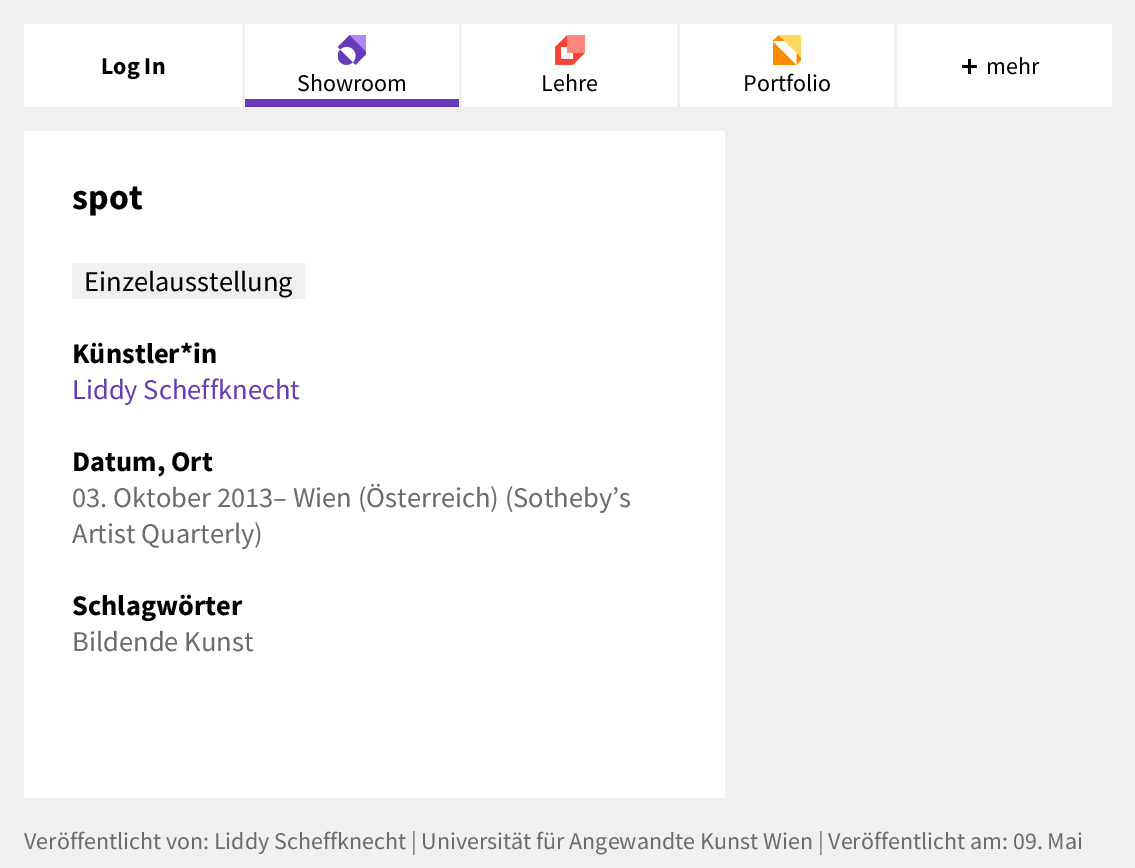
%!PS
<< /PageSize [1135 868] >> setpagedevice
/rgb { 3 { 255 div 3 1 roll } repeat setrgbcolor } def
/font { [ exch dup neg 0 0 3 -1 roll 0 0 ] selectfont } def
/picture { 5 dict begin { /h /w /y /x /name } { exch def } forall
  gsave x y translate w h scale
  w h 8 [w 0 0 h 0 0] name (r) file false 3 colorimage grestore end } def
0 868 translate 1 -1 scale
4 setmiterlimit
240 240 240 rgb
0 0 1135 868 rectfill
[
  [245 24 867 83 255 255 255]
  [24 24 218 83 255 255 255]
  [894 24 3 83 240 240 240]
  [968 59 3 15 0 0 0]
  [962 65 15 3 0 0 0]
  [245 99 214 8 103 58 183]
] { aload pop rgb rectfill } forall
(img/1.rgb) 338 35 28 30 picture
240 240 240 rgb
459 24 3 83 rectfill
(img/2.rgb) 555 35 30 30 picture
677 24 3 83 rectfill
(img/3.rgb) 773 35 28 30 picture
255 255 255 rgb
24 131 701 667 rectfill
240 240 240 rgb
72 263 233 36 rectfill
/SourceSansPro-Bold 24 font
0 0 0 rgb
101 74 moveto (Log In) show
/SourceSansPro-Regular 24 font
[
  [(mehr) 986 74]
  [(Showroom) 297 91]
  [(Lehre) 541 91]
  [(Portfolio) 743 91]
] { aload pop moveto show } forall
/SourceSansPro-Bold 36 font
72 209 moveto (spot) show
/SourceSansPro-Regular 28.5 font
84 291 moveto (Einzelausstellung) show
/SourceSansPro-Bold 28.5 font
72 363 moveto (Künstler*in) show
/SourceSansPro-Regular 28.5 font
103 58 183 rgb
72 399 moveto (Liddy Scheffknecht) show
/SourceSansPro-Bold 28.5 font
0 0 0 rgb
72 471 moveto (Datum, Ort) show
/SourceSansPro-Regular 28.5 font
107 107 107 rgb
72 507 moveto (03. Oktober 2013– Wien \(Österreich\) \(Sotheby’s) show
72 543 moveto (Artist Quarterly\)) show
/SourceSansPro-Bold 28.5 font
0 0 0 rgb
72 615 moveto (Schlagwörter) show
/SourceSansPro-Regular 28.5 font
107 107 107 rgb
72 651 moveto (Bildende Kunst) show
/SourceSansPro-Regular 24 font
24 849 moveto (Veröffentlicht von: Liddy Scheffknecht | Universität für Angewandte Kunst Wien | Veröffentlicht am: 09. Mai) show
showpage
